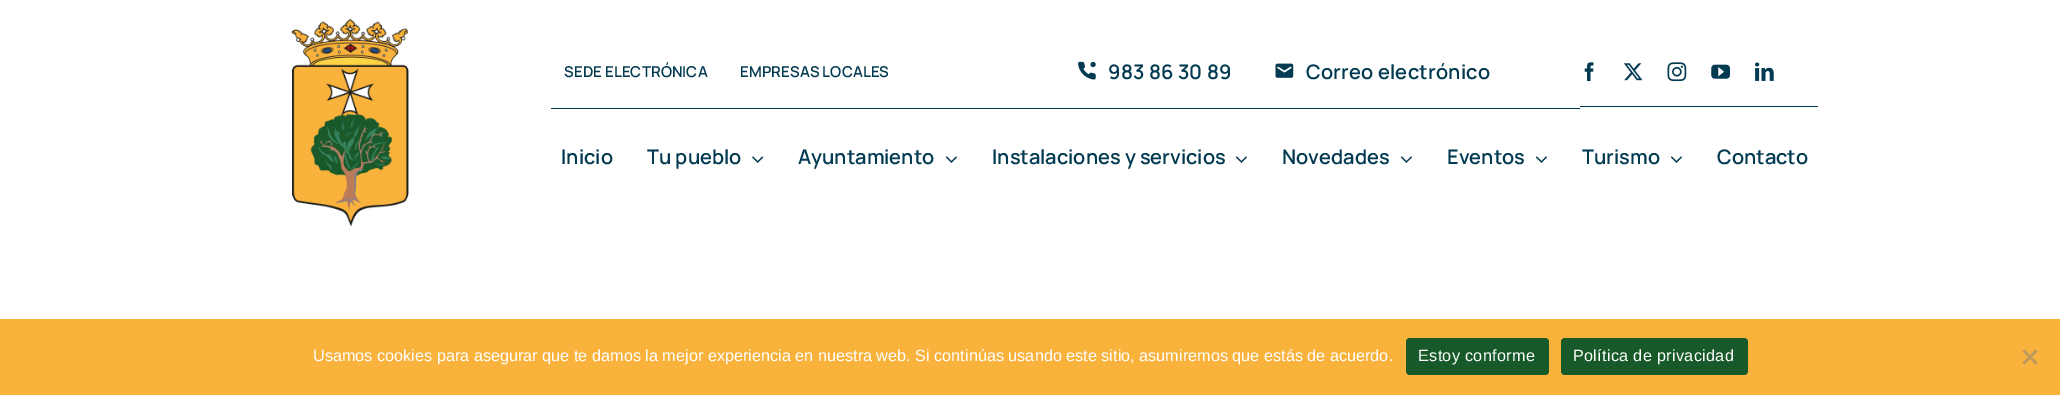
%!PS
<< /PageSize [2060 395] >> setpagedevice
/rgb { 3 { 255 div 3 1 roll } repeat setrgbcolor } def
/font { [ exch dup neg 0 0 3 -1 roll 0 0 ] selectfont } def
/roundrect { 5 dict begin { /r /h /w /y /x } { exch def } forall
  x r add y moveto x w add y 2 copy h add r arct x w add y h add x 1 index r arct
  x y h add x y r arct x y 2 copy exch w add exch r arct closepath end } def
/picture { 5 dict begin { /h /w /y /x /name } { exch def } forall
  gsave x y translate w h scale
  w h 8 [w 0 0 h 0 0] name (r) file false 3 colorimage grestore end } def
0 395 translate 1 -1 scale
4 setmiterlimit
255 255 255 rgb
0 0 2060 395 rectfill
(img/1.rgb) 291 18 118 209 picture
2 58 81 rgb
551 108 1029 1 rectfill
(img/2.rgb) 1078 61 18 19 picture
(img/3.rgb) 1275 63 19 15 picture
1580 106 238 1 rectfill
(img/4.rgb) 1584 62 10 20 picture
(img/5.rgb) 1623 63 20 18 picture
(img/6.rgb) 1667 62 20 20 picture
(img/7.rgb) 1711 64 19 15 picture
(img/8.rgb) 1755 62 19 19 picture
(img/9.rgb) 752 156 12 7 picture
(img/10.rgb) 945 156 12 7 picture
(img/10.rgb) 1235 156 12 7 picture
(img/10.rgb) 1400 156 12 7 picture
(img/10.rgb) 1535 156 12 7 picture
(img/10.rgb) 1670 156 12 7 picture
249 178 60 rgb
0 319 2060 76 rectfill
23 89 41 rgb
1406 338 143 37 4 roundrect fill
1561 338 187 37 4 roundrect fill
189 153 94 rgb
2035.5 349.5 moveto 2037.5 351.5 lineto 2024.5 364.5 lineto 2022.5 363 lineto closepath fill
2022.5 351.5 moveto 2024.5 349.5 lineto 2037.5 363 lineto 2035.5 364.5 lineto closepath fill
/Manrope-SemiBold 15 font
2 58 81 rgb
564 77 moveto 0.1 0 (SEDE ELECTRÓNICA) ashow
740 77 moveto 0.1 0 (EMPRESAS LOCALES) ashow
/Manrope-SemiBold 20 font
1108 79 moveto 0.2 0 (983 86 30 89) ashow
1306 79 moveto 0.2 0 (Correo electrónico) ashow
[
  [(Inicio) 561 164]
  [(Tu pueblo) 647 164]
  [(Ayuntamiento) 798 164]
  [(Instalaciones y servicios) 992 164]
  [(Novedades) 1282 164]
  [(Eventos) 1447 164]
  [(Turismo) 1582 164]
  [(Contacto) 1717 164]
] { aload pop moveto show } forall
/LiberationSans-Regular 16.25 font
255 255 255 rgb
313 361 moveto (Usamos cookies para asegurar que te damos la mejor experiencia en nuestra web. Si continúas usando este sitio, asumiremos que estás de acuerdo.) show
1418 361 moveto 0.3 0 (Estoy conforme) ashow
1573 361 moveto 0.3 0 (Política de privacidad) ashow
showpage
